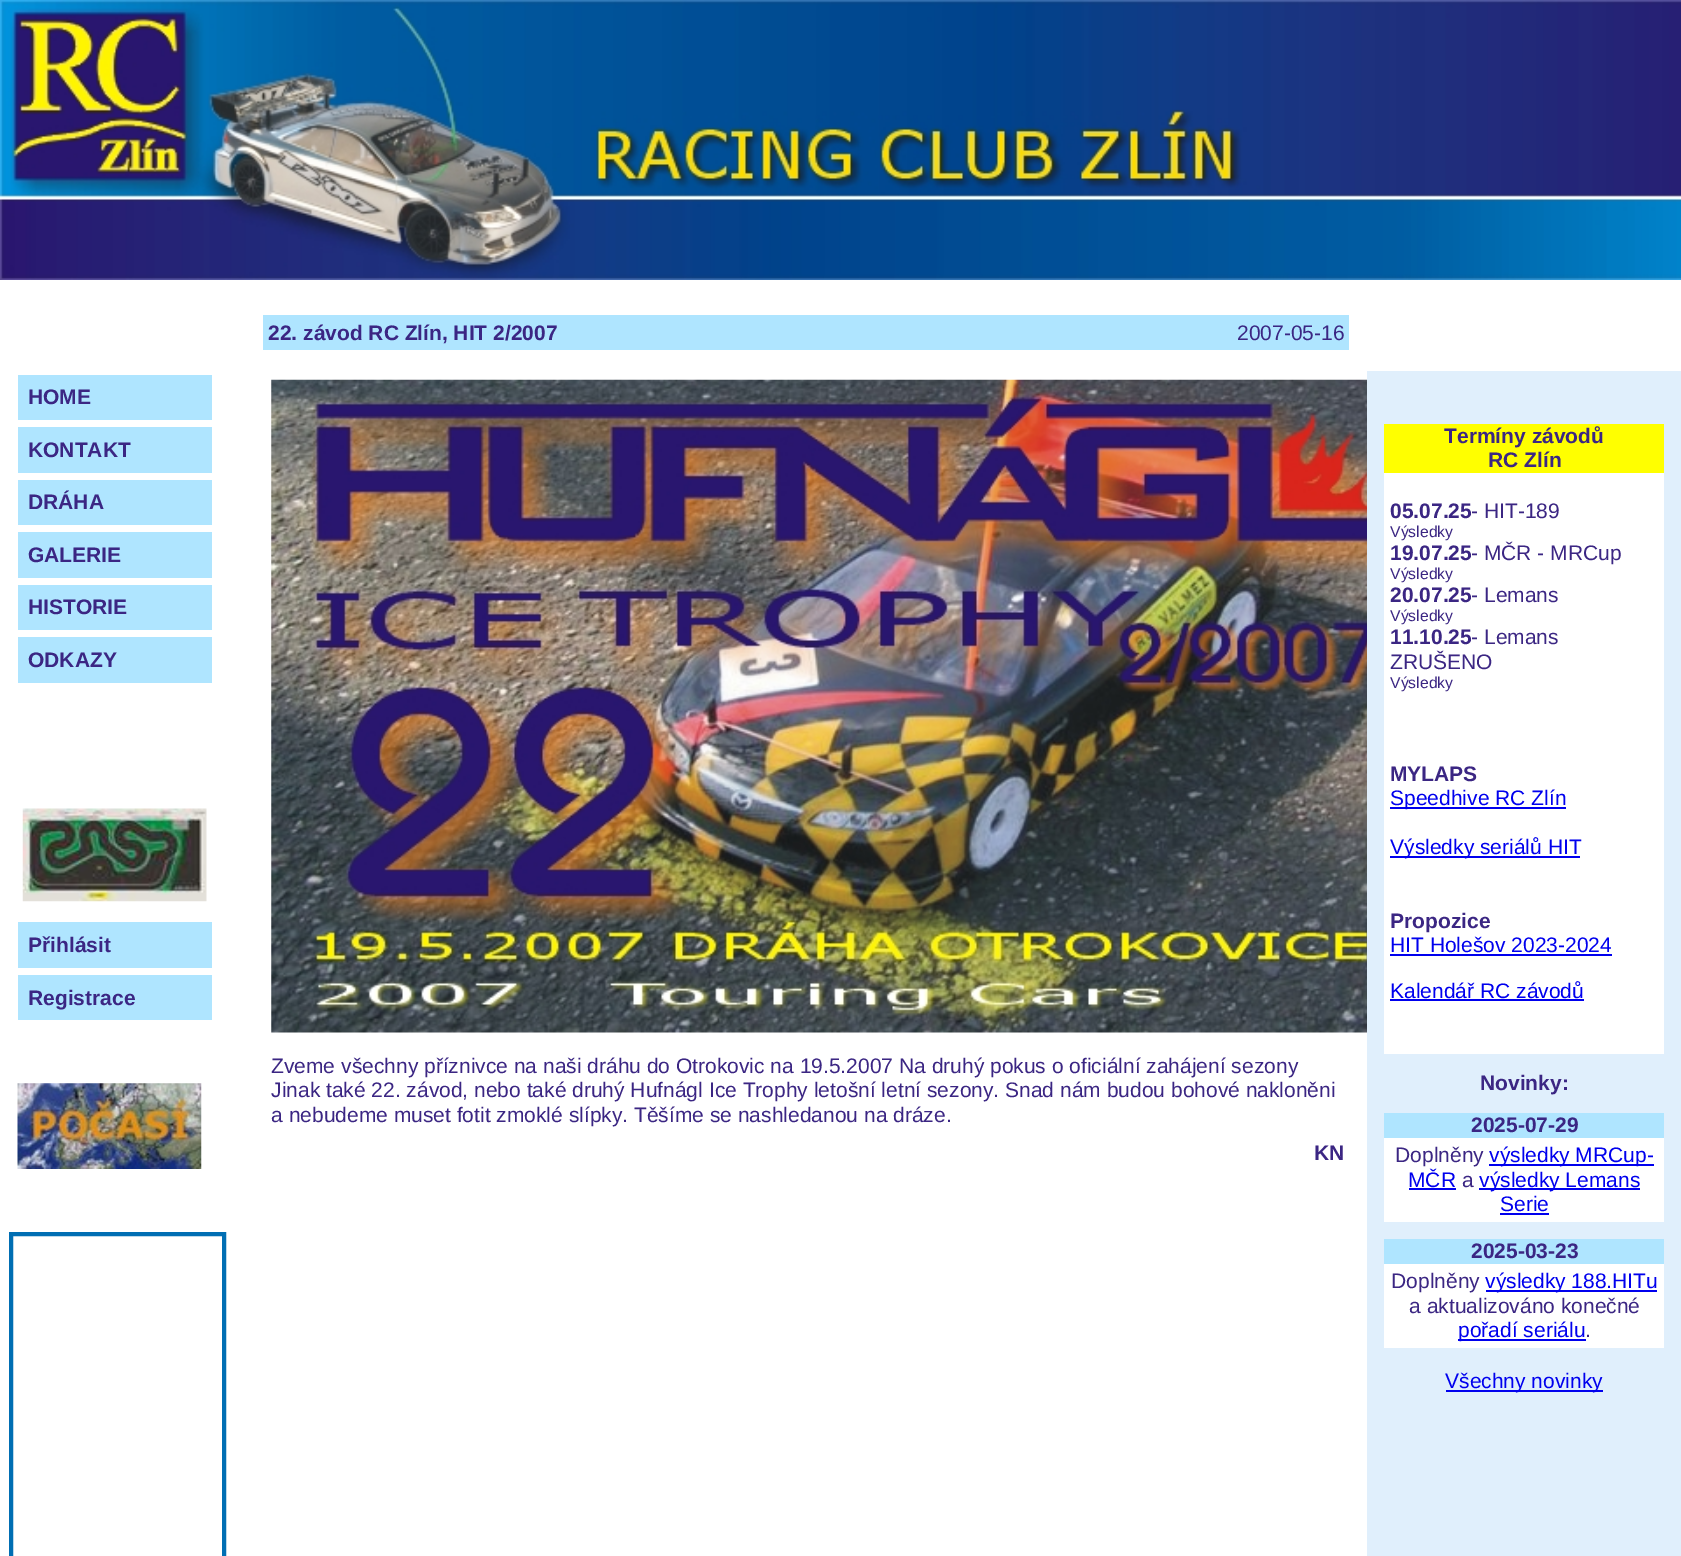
%!PS
<< /PageSize [1681 1556] >> setpagedevice
/rgb { 3 { 255 div 3 1 roll } repeat setrgbcolor } def
/font { [ exch dup neg 0 0 3 -1 roll 0 0 ] selectfont } def
/picture { 5 dict begin { /h /w /y /x /name } { exch def } forall
  gsave x y translate w h scale
  w h 8 [w 0 0 h 0 0] name (r) file false 3 colorimage grestore end } def
0 1556 translate 1 -1 scale
4 setmiterlimit
255 255 255 rgb
0 0 1681 1556 rectfill
(img/1.rgb) 0 0 1681 280 picture
[
  [18 375 194 45 175 229 255]
  [18 427 194 46 175 229 255]
  [18 480 194 45 175 229 255]
  [18 532 194 46 175 229 255]
  [18 585 194 45 175 229 255]
  [18 637 194 46 175 229 255]
] { aload pop rgb rectfill } forall
(img/2.rgb) 22 808 185 94 picture
18 922 194 46 rectfill
18 975 194 45 rectfill
(img/3.rgb) 17 1083 185 86 picture
0 110 179 rgb
4 setlinewidth
11 1234 213 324 rectstroke
175 229 255 rgb
263 315 1086 35 rectfill
(img/4.rgb) 271 379 1096 654 picture
[
  [1367 371 314 1185 224 239 252]
  [1384 473 280 581 255 255 255]
  [1384 424 280 49 255 255 0]
  [1390 807 176 2 0 0 238]
  [1390 856 190 2 0 0 238]
  [1390 954 222 2 0 0 238]
  [1390 999 194 2 0 0 238]
  [1384 1138 280 84 255 255 255]
  [1384 1113 280 25 175 229 255]
  [1489 1164 165 2 0 0 238]
  [1409 1188 47 2 0 0 238]
  [1479 1188 161 2 0 0 238]
  [1500 1213 49 2 0 0 238]
  [1384 1264 280 84 255 255 255]
  [1384 1239 280 25 175 229 255]
  [1486 1290 171 2 0 0 238]
  [1458 1339 128 2 0 0 238]
  [1446 1390 157 2 0 0 238]
] { aload pop rgb rectfill } forall
/LiberationSans-Bold 21 font
59 38 131 rgb
[
  [(HOME) 28 404]
  [(KONTAKT) 28 457]
  [(DRÁHA) 28 509]
  [(GALERIE) 28 562]
  [(HISTORIE) 28 614]
  [(ODKAZY) 28 667]
  [(Přihlásit) 28 952]
  [(Registrace) 28 1005]
  [(22. závod RC Zlín, HIT 2/2007) 268 340]
] { aload pop moveto show } forall
/LiberationSans-Regular 21 font
[
  [(2007-05-16) 1237 340]
  [(Zveme všechny příznivce na naši dráhu do Otrokovic na 19.5.2007 Na druhý pokus o oficiální zahájení sezony) 271 1073]
  [(Jinak také 22. závod, nebo také druhý Hufnágl Ice Trophy letošní letní sezony. Snad nám budou bohové nakloněni) 271 1097]
  [(a nebudeme muset fotit zmoklé slípky. Těšíme se nashledanou na dráze.) 271 1122]
] { aload pop moveto show } forall
/LiberationSans-Bold 21 font
[
  [(KN) 1314 1160]
  [(Termíny závodů) 1444 443]
  [(RC Zlín) 1488 467]
  [(05.07.25) 1390 518]
] { aload pop moveto show } forall
/LiberationSans-Regular 21 font
1471 518 moveto (- HIT-189) show
/LiberationSans-Regular 15.75 font
1390 537 moveto (Výsledky) show
/LiberationSans-Bold 21 font
1390 560 moveto (19.07.25) show
/LiberationSans-Regular 21 font
1471 560 moveto (- MČR - MRCup) show
/LiberationSans-Regular 15.75 font
1390 579 moveto (Výsledky) show
/LiberationSans-Bold 21 font
1390 602 moveto (20.07.25) show
/LiberationSans-Regular 21 font
1471 602 moveto (- Lemans) show
/LiberationSans-Regular 15.75 font
1390 621 moveto (Výsledky) show
/LiberationSans-Bold 21 font
1390 644 moveto (11.10.25) show
/LiberationSans-Regular 21 font
1471 644 moveto (- Lemans) show
1390 669 moveto (ZRUŠENO) show
/LiberationSans-Regular 15.75 font
1390 688 moveto (Výsledky) show
/LiberationSans-Bold 21 font
1390 781 moveto (MYLAPS) show
/LiberationSans-Regular 21 font
0 0 238 rgb
1390 805 moveto (Speedhive RC Zlín) show
1390 854 moveto (Výsledky seriálů HIT) show
/LiberationSans-Bold 21 font
59 38 131 rgb
1390 928 moveto (Propozice) show
/LiberationSans-Regular 21 font
0 0 238 rgb
1390 952 moveto (HIT Holešov 2023-2024) show
1390 998 moveto (Kalendář RC závodů) show
/LiberationSans-Bold 21 font
59 38 131 rgb
1480 1090 moveto (Novinky:) show
1471 1132 moveto (2025-07-29) show
/LiberationSans-Regular 21 font
1395 1162 moveto (Doplněny) show
0 0 238 rgb
1489 1162 moveto (výsledky MRCup-) show
1408 1187 moveto (MČR) show
59 38 131 rgb
1462 1187 moveto (a) show
0 0 238 rgb
1479 1187 moveto (výsledky Lemans) show
1500 1211 moveto (Serie) show
/LiberationSans-Bold 21 font
59 38 131 rgb
1471 1258 moveto (2025-03-23) show
/LiberationSans-Regular 21 font
1391 1288 moveto (Doplněny) show
0 0 238 rgb
1485 1288 moveto (výsledky 188.HITu) show
59 38 131 rgb
1409 1313 moveto (a aktualizováno konečné) show
0 0 238 rgb
1458 1337 moveto (pořadí seriálu) show
59 38 131 rgb
1585 1337 moveto (.) show
0 0 238 rgb
1445 1388 moveto (Všechny novinky) show
showpage
